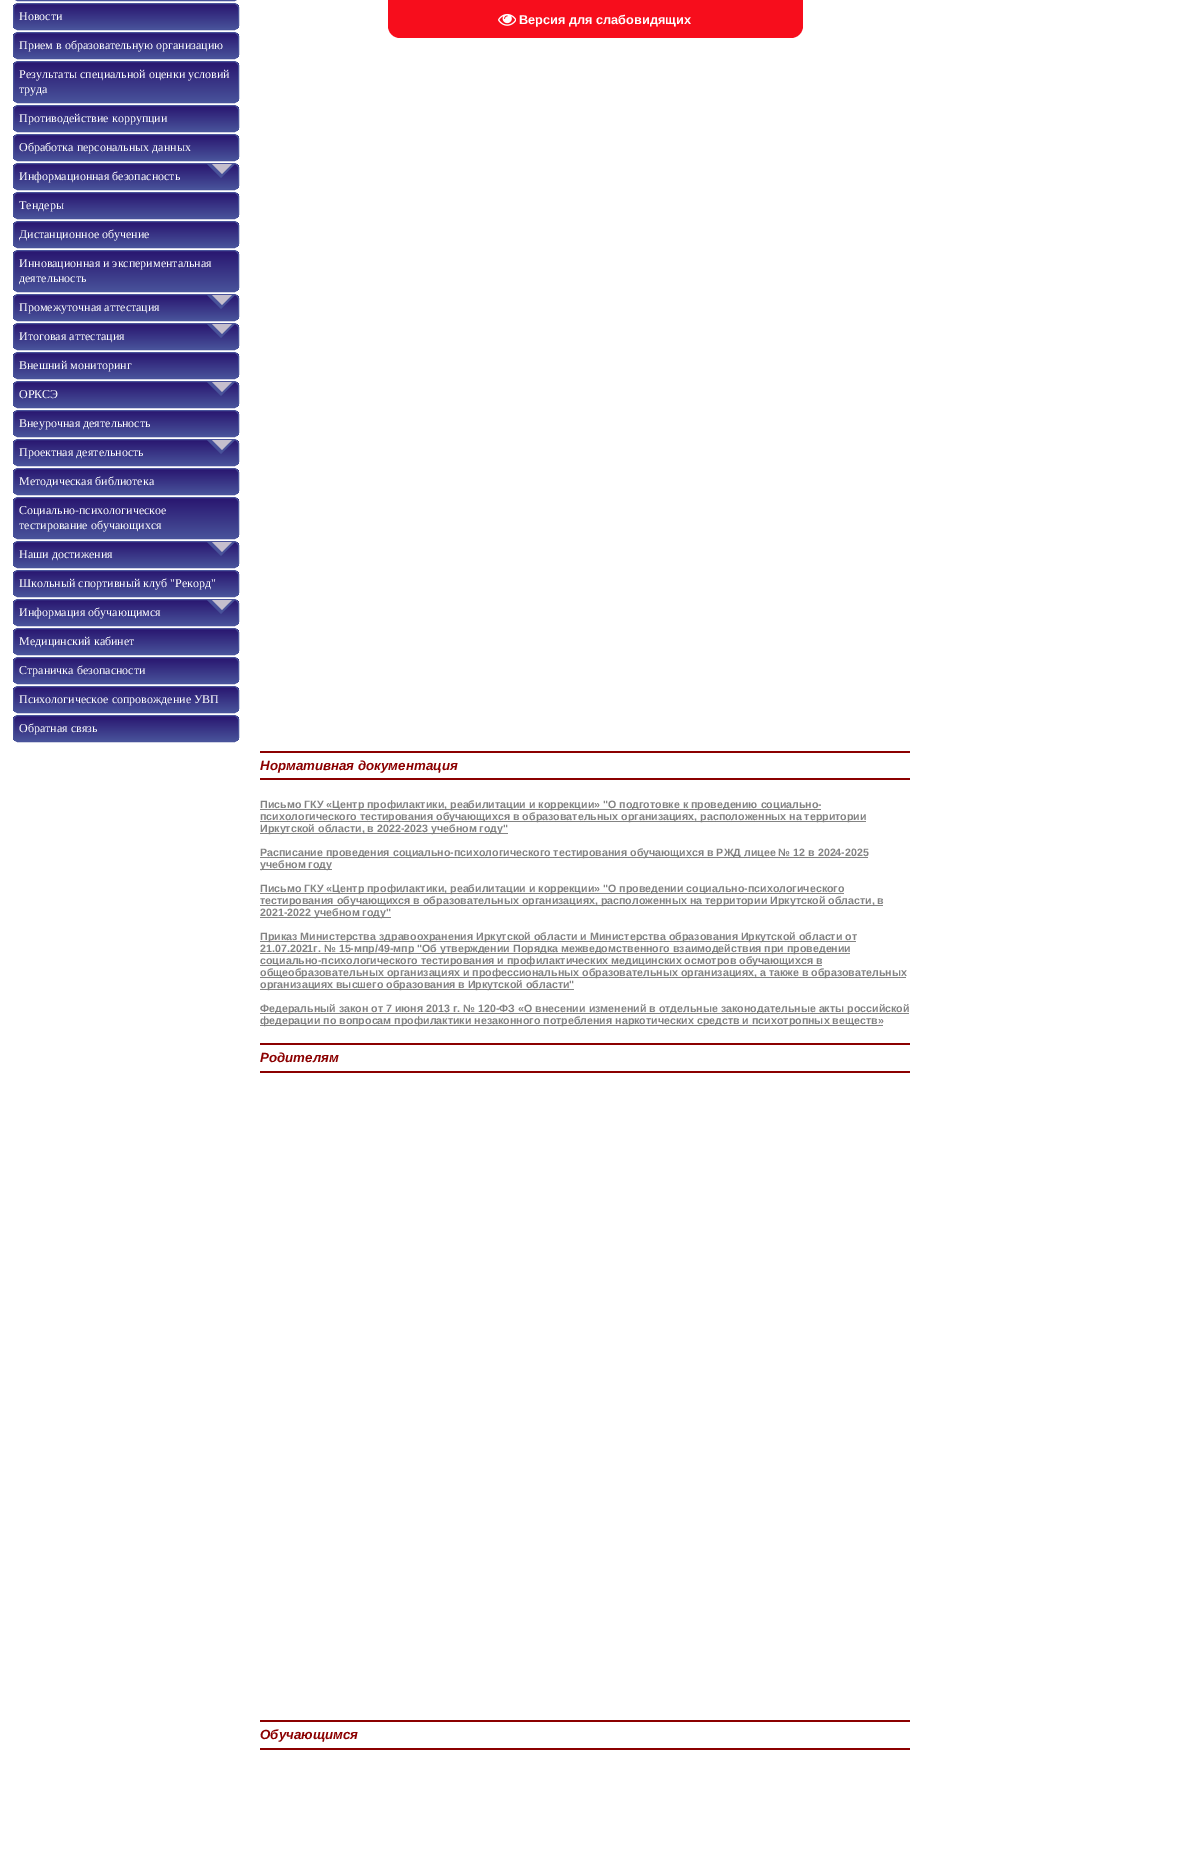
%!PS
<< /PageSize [1190 1863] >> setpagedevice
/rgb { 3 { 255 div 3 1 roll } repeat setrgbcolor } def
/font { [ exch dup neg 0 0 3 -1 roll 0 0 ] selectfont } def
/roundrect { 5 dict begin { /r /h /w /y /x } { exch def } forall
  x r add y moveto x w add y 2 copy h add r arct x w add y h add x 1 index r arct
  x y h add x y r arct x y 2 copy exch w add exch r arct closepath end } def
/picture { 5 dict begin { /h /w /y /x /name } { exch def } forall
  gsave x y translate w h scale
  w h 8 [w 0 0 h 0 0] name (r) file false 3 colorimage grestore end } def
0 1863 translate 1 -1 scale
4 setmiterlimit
255 255 255 rgb
0 0 1190 1863 rectfill
72 82 154 rgb
13.5 -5.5 225 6 4.5 roundrect stroke
gsave
13 3 226 27 5 roundrect clip newpath
gsave 13 4 moveto 239 4 lineto 239 29 lineto 13 29 lineto closepath clip newpath
<< /ShadingType 2 /ColorSpace /DeviceRGB /Coords [126 4 126 29] /Extend [true true] /Function << /FunctionType 2 /Domain [0 1] /C0 [0.161 0.086 0.439] /C1 [0.282 0.322 0.604] /N 1 >> >> shfill grestore
grestore
13.5 3.5 225 26 4.5 roundrect stroke
gsave
13 32 226 27 5 roundrect clip newpath
gsave 13 33 moveto 239 33 lineto 239 58 lineto 13 58 lineto closepath clip newpath
<< /ShadingType 2 /ColorSpace /DeviceRGB /Coords [126 33 126 58] /Extend [true true] /Function << /FunctionType 2 /Domain [0 1] /C0 [0.161 0.086 0.439] /C1 [0.282 0.322 0.604] /N 1 >> >> shfill grestore
grestore
13.5 32.5 225 26 4.5 roundrect stroke
gsave
13 61 226 42 5 roundrect clip newpath
gsave 13 62 moveto 239 62 lineto 239 102 lineto 13 102 lineto closepath clip newpath
<< /ShadingType 2 /ColorSpace /DeviceRGB /Coords [126 62 126 102] /Extend [true true] /Function << /FunctionType 2 /Domain [0 1] /C0 [0.161 0.086 0.439] /C1 [0.282 0.322 0.604] /N 1 >> >> shfill grestore
grestore
13.5 61.5 225 41 4.5 roundrect stroke
gsave
13 105 226 27 5 roundrect clip newpath
gsave 13 106 moveto 239 106 lineto 239 131 lineto 13 131 lineto closepath clip newpath
<< /ShadingType 2 /ColorSpace /DeviceRGB /Coords [126 106 126 131] /Extend [true true] /Function << /FunctionType 2 /Domain [0 1] /C0 [0.161 0.086 0.439] /C1 [0.282 0.322 0.604] /N 1 >> >> shfill grestore
grestore
13.5 105.5 225 26 4.5 roundrect stroke
gsave
13 134 226 27 5 roundrect clip newpath
gsave 13 135 moveto 239 135 lineto 239 160 lineto 13 160 lineto closepath clip newpath
<< /ShadingType 2 /ColorSpace /DeviceRGB /Coords [126 135 126 160] /Extend [true true] /Function << /FunctionType 2 /Domain [0 1] /C0 [0.161 0.086 0.439] /C1 [0.282 0.322 0.604] /N 1 >> >> shfill grestore
grestore
13.5 134.5 225 26 4.5 roundrect stroke
gsave
13 163 226 27 5 roundrect clip newpath
gsave 13 164 moveto 239 164 lineto 239 189 lineto 13 189 lineto closepath clip newpath
<< /ShadingType 2 /ColorSpace /DeviceRGB /Coords [126 164 126 189] /Extend [true true] /Function << /FunctionType 2 /Domain [0 1] /C0 [0.161 0.086 0.439] /C1 [0.282 0.322 0.604] /N 1 >> >> shfill grestore
grestore
13.5 163.5 225 26 4.5 roundrect stroke
207 164 moveto 235 164 lineto 221 178 lineto closepath fill
197 191 205 rgb
212 164 moveto 232 164 lineto 222 174 lineto closepath fill
gsave
13 192 226 27 5 roundrect clip newpath
gsave 13 193 moveto 239 193 lineto 239 218 lineto 13 218 lineto closepath clip newpath
<< /ShadingType 2 /ColorSpace /DeviceRGB /Coords [126 193 126 218] /Extend [true true] /Function << /FunctionType 2 /Domain [0 1] /C0 [0.161 0.086 0.439] /C1 [0.282 0.322 0.604] /N 1 >> >> shfill grestore
grestore
72 82 154 rgb
13.5 192.5 225 26 4.5 roundrect stroke
gsave
13 221 226 27 5 roundrect clip newpath
gsave 13 222 moveto 239 222 lineto 239 247 lineto 13 247 lineto closepath clip newpath
<< /ShadingType 2 /ColorSpace /DeviceRGB /Coords [126 222 126 247] /Extend [true true] /Function << /FunctionType 2 /Domain [0 1] /C0 [0.161 0.086 0.439] /C1 [0.282 0.322 0.604] /N 1 >> >> shfill grestore
grestore
13.5 221.5 225 26 4.5 roundrect stroke
gsave
13 250 226 42 5 roundrect clip newpath
gsave 13 251 moveto 239 251 lineto 239 291 lineto 13 291 lineto closepath clip newpath
<< /ShadingType 2 /ColorSpace /DeviceRGB /Coords [126 251 126 291] /Extend [true true] /Function << /FunctionType 2 /Domain [0 1] /C0 [0.161 0.086 0.439] /C1 [0.282 0.322 0.604] /N 1 >> >> shfill grestore
grestore
13.5 250.5 225 41 4.5 roundrect stroke
gsave
13 294 226 27 5 roundrect clip newpath
gsave 13 295 moveto 239 295 lineto 239 320 lineto 13 320 lineto closepath clip newpath
<< /ShadingType 2 /ColorSpace /DeviceRGB /Coords [126 295 126 320] /Extend [true true] /Function << /FunctionType 2 /Domain [0 1] /C0 [0.161 0.086 0.439] /C1 [0.282 0.322 0.604] /N 1 >> >> shfill grestore
grestore
13.5 294.5 225 26 4.5 roundrect stroke
207 295 moveto 235 295 lineto 221 309 lineto closepath fill
197 191 205 rgb
212 295 moveto 232 295 lineto 222 305 lineto closepath fill
gsave
13 323 226 27 5 roundrect clip newpath
gsave 13 324 moveto 239 324 lineto 239 349 lineto 13 349 lineto closepath clip newpath
<< /ShadingType 2 /ColorSpace /DeviceRGB /Coords [126 324 126 349] /Extend [true true] /Function << /FunctionType 2 /Domain [0 1] /C0 [0.161 0.086 0.439] /C1 [0.282 0.322 0.604] /N 1 >> >> shfill grestore
grestore
72 82 154 rgb
13.5 323.5 225 26 4.5 roundrect stroke
207 324 moveto 235 324 lineto 221 338 lineto closepath fill
197 191 205 rgb
212 324 moveto 232 324 lineto 222 334 lineto closepath fill
gsave
13 352 226 27 5 roundrect clip newpath
gsave 13 353 moveto 239 353 lineto 239 378 lineto 13 378 lineto closepath clip newpath
<< /ShadingType 2 /ColorSpace /DeviceRGB /Coords [126 353 126 378] /Extend [true true] /Function << /FunctionType 2 /Domain [0 1] /C0 [0.161 0.086 0.439] /C1 [0.282 0.322 0.604] /N 1 >> >> shfill grestore
grestore
72 82 154 rgb
13.5 352.5 225 26 4.5 roundrect stroke
gsave
13 381 226 27 5 roundrect clip newpath
gsave 13 382 moveto 239 382 lineto 239 407 lineto 13 407 lineto closepath clip newpath
<< /ShadingType 2 /ColorSpace /DeviceRGB /Coords [126 382 126 407] /Extend [true true] /Function << /FunctionType 2 /Domain [0 1] /C0 [0.161 0.086 0.439] /C1 [0.282 0.322 0.604] /N 1 >> >> shfill grestore
grestore
13.5 381.5 225 26 4.5 roundrect stroke
207 382 moveto 235 382 lineto 221 396 lineto closepath fill
197 191 205 rgb
212 382 moveto 232 382 lineto 222 392 lineto closepath fill
gsave
13 410 226 27 5 roundrect clip newpath
gsave 13 411 moveto 239 411 lineto 239 436 lineto 13 436 lineto closepath clip newpath
<< /ShadingType 2 /ColorSpace /DeviceRGB /Coords [126 411 126 436] /Extend [true true] /Function << /FunctionType 2 /Domain [0 1] /C0 [0.161 0.086 0.439] /C1 [0.282 0.322 0.604] /N 1 >> >> shfill grestore
grestore
72 82 154 rgb
13.5 410.5 225 26 4.5 roundrect stroke
gsave
13 439 226 27 5 roundrect clip newpath
gsave 13 440 moveto 239 440 lineto 239 465 lineto 13 465 lineto closepath clip newpath
<< /ShadingType 2 /ColorSpace /DeviceRGB /Coords [126 440 126 465] /Extend [true true] /Function << /FunctionType 2 /Domain [0 1] /C0 [0.161 0.086 0.439] /C1 [0.282 0.322 0.604] /N 1 >> >> shfill grestore
grestore
13.5 439.5 225 26 4.5 roundrect stroke
207 440 moveto 235 440 lineto 221 454 lineto closepath fill
197 191 205 rgb
212 440 moveto 232 440 lineto 222 450 lineto closepath fill
gsave
13 468 226 27 5 roundrect clip newpath
gsave 13 469 moveto 239 469 lineto 239 494 lineto 13 494 lineto closepath clip newpath
<< /ShadingType 2 /ColorSpace /DeviceRGB /Coords [126 469 126 494] /Extend [true true] /Function << /FunctionType 2 /Domain [0 1] /C0 [0.161 0.086 0.439] /C1 [0.282 0.322 0.604] /N 1 >> >> shfill grestore
grestore
72 82 154 rgb
13.5 468.5 225 26 4.5 roundrect stroke
gsave
13 497 226 42 5 roundrect clip newpath
gsave 13 498 moveto 239 498 lineto 239 538 lineto 13 538 lineto closepath clip newpath
<< /ShadingType 2 /ColorSpace /DeviceRGB /Coords [126 498 126 538] /Extend [true true] /Function << /FunctionType 2 /Domain [0 1] /C0 [0.161 0.086 0.439] /C1 [0.282 0.322 0.604] /N 1 >> >> shfill grestore
grestore
13.5 497.5 225 41 4.5 roundrect stroke
gsave
13 541 226 27 5 roundrect clip newpath
gsave 13 542 moveto 239 542 lineto 239 567 lineto 13 567 lineto closepath clip newpath
<< /ShadingType 2 /ColorSpace /DeviceRGB /Coords [126 542 126 567] /Extend [true true] /Function << /FunctionType 2 /Domain [0 1] /C0 [0.161 0.086 0.439] /C1 [0.282 0.322 0.604] /N 1 >> >> shfill grestore
grestore
13.5 541.5 225 26 4.5 roundrect stroke
207 542 moveto 235 542 lineto 221 556 lineto closepath fill
197 191 205 rgb
212 542 moveto 232 542 lineto 222 552 lineto closepath fill
gsave
13 570 226 27 5 roundrect clip newpath
gsave 13 571 moveto 239 571 lineto 239 596 lineto 13 596 lineto closepath clip newpath
<< /ShadingType 2 /ColorSpace /DeviceRGB /Coords [126 571 126 596] /Extend [true true] /Function << /FunctionType 2 /Domain [0 1] /C0 [0.161 0.086 0.439] /C1 [0.282 0.322 0.604] /N 1 >> >> shfill grestore
grestore
72 82 154 rgb
13.5 570.5 225 26 4.5 roundrect stroke
gsave
13 599 226 27 5 roundrect clip newpath
gsave 13 600 moveto 239 600 lineto 239 625 lineto 13 625 lineto closepath clip newpath
<< /ShadingType 2 /ColorSpace /DeviceRGB /Coords [126 600 126 625] /Extend [true true] /Function << /FunctionType 2 /Domain [0 1] /C0 [0.161 0.086 0.439] /C1 [0.282 0.322 0.604] /N 1 >> >> shfill grestore
grestore
13.5 599.5 225 26 4.5 roundrect stroke
207 600 moveto 235 600 lineto 221 614 lineto closepath fill
197 191 205 rgb
212 600 moveto 232 600 lineto 222 610 lineto closepath fill
gsave
13 628 226 27 5 roundrect clip newpath
gsave 13 629 moveto 239 629 lineto 239 654 lineto 13 654 lineto closepath clip newpath
<< /ShadingType 2 /ColorSpace /DeviceRGB /Coords [126 629 126 654] /Extend [true true] /Function << /FunctionType 2 /Domain [0 1] /C0 [0.161 0.086 0.439] /C1 [0.282 0.322 0.604] /N 1 >> >> shfill grestore
grestore
72 82 154 rgb
13.5 628.5 225 26 4.5 roundrect stroke
gsave
13 657 226 27 5 roundrect clip newpath
gsave 13 658 moveto 239 658 lineto 239 683 lineto 13 683 lineto closepath clip newpath
<< /ShadingType 2 /ColorSpace /DeviceRGB /Coords [126 658 126 683] /Extend [true true] /Function << /FunctionType 2 /Domain [0 1] /C0 [0.161 0.086 0.439] /C1 [0.282 0.322 0.604] /N 1 >> >> shfill grestore
grestore
13.5 657.5 225 26 4.5 roundrect stroke
gsave
13 686 226 27 5 roundrect clip newpath
gsave 13 687 moveto 239 687 lineto 239 712 lineto 13 712 lineto closepath clip newpath
<< /ShadingType 2 /ColorSpace /DeviceRGB /Coords [126 687 126 712] /Extend [true true] /Function << /FunctionType 2 /Domain [0 1] /C0 [0.161 0.086 0.439] /C1 [0.282 0.322 0.604] /N 1 >> >> shfill grestore
grestore
13.5 686.5 225 26 4.5 roundrect stroke
gsave
13 715 226 27 5 roundrect clip newpath
gsave 13 716 moveto 239 716 lineto 239 741 lineto 13 741 lineto closepath clip newpath
<< /ShadingType 2 /ColorSpace /DeviceRGB /Coords [126 716 126 741] /Extend [true true] /Function << /FunctionType 2 /Domain [0 1] /C0 [0.161 0.086 0.439] /C1 [0.282 0.322 0.604] /N 1 >> >> shfill grestore
grestore
13.5 715.5 225 26 4.5 roundrect stroke
[
  [260 751 650 2 139 0 0]
  [260 778 650 2 139 0 0]
  [260 809 561 1 131 131 131]
  [260 821 606 1 131 131 131]
  [260 833 248 1 131 131 131]
  [260 857 608 1 131 131 131]
  [260 869 72 1 131 131 131]
  [260 893 584 1 131 131 131]
  [260 905 623 1 131 131 131]
  [260 917 131 1 131 131 131]
  [260 941 596 1 131 131 131]
  [260 953 590 1 131 131 131]
  [260 965 562 1 131 131 131]
  [260 977 646 1 131 131 131]
  [260 989 314 1 131 131 131]
  [260 1013 649 1 131 131 131]
  [260 1025 623 1 131 131 131]
  [260 1043 650 2 139 0 0]
  [260 1071 650 2 139 0 0]
  [260 1720 650 2 139 0 0]
  [260 1748 650 2 139 0 0]
] { aload pop rgb rectfill } forall
247 13 28 rgb
388 0 moveto 803 0 lineto 803 26 lineto 803 32.5 797.5 38 791 38 curveto 400 38 lineto 393.5 38 388 32.5 388 26 curveto closepath fill
(img/1.rgb) 498 13 18 13 picture
/LiberationSerif-Regular 12 font
255 255 255 rgb
[
  [(Новости) 19 20]
  [(Прием в образовательную организацию) 19 49]
  [(Результаты специальной оценки условий) 19 78]
  [(труда) 19 93]
  [(Противодействие коррупции) 19 122]
  [(Обработка персональных данных) 19 151]
  [(Информационная безопасность) 19 180]
  [(Тендеры) 19 209]
  [(Дистанционное обучение) 19 238]
  [(Инновационная и экспериментальная) 19 267]
  [(деятельность) 19 282]
  [(Промежуточная аттестация) 19 311]
  [(Итоговая аттестация) 19 340]
  [(Внешний мониторинг) 19 369]
  [(ОРКСЭ) 19 398]
  [(Внеурочная деятельность) 19 427]
  [(Проектная деятельность) 19 456]
  [(Методическая библиотека) 19 485]
  [(Социально-психологическое) 19 514]
  [(тестирование обучающихся) 19 529]
  [(Наши достижения) 19 558]
  [(Школьный спортивный клуб "Рекорд") 19 587]
  [(Информация обучающимся) 19 616]
  [(Медицинский кабинет) 19 645]
  [(Страничка безопасности) 19 674]
  [(Психологическое сопровождение УВП) 19 703]
  [(Обратная связь) 19 732]
] { aload pop moveto show } forall
/LiberationSans-BoldItalic 13.3 font
139 0 0 rgb
260 770 moveto (Нормативная документация) show
/LiberationSans-Bold 10.67 font
131 131 131 rgb
[
  [(Письмо ГКУ «Центр профилактики, реабилитации и коррекции» "О подготовке к проведению социально-) 260 808]
  [(психологического тестирования обучающихся в образовательных организациях, расположенных на территории) 260 820]
  [(Иркутской области, в 2022-2023 учебном году") 260 832]
  [(Расписание проведения социально-психологического тестирования обучающихся в РЖД лицее № 12 в 2024-2025) 260 856]
  [(учебном году) 260 868]
  [(Письмо ГКУ «Центр профилактики, реабилитации и коррекции» "О проведении социально-психологического) 260 892]
  [(тестирования обучающихся в образовательных организациях, расположенных на территории Иркутской области, в) 260 904]
  [(2021-2022 учебном году") 260 916]
  [(Приказ Министерства здравоохранения Иркутской области и Министерства образования Иркутской области от) 260 940]
  [(21.07.2021г. № 15-мпр/49-мпр "Об утверждении Порядка межведомственного взаимодействия при проведении) 260 952]
  [(социально-психологического тестирования и профилактических медицинских осмотров обучающихся в) 260 964]
  [(общеобразовательных организациях и профессиональных образовательных организациях, а также в образовательных) 260 976]
  [(организациях высшего образования в Иркутской области") 260 988]
  [(Федеральный закон от 7 июня 2013 г. № 120-ФЗ «О внесении изменений в отдельные законодательные акты российской) 260 1012]
  [(федерации по вопросам профилактики незаконного потребления наркотических средств и психотропных веществ») 260 1024]
] { aload pop moveto show } forall
/LiberationSans-BoldItalic 13.3 font
139 0 0 rgb
260 1062 moveto (Родителям) show
260 1739 moveto (Обучающимся) show
/LiberationSans-Bold 12.75 font
255 255 255 rgb
519 24 moveto (Версия для слабовидящих) show
showpage
